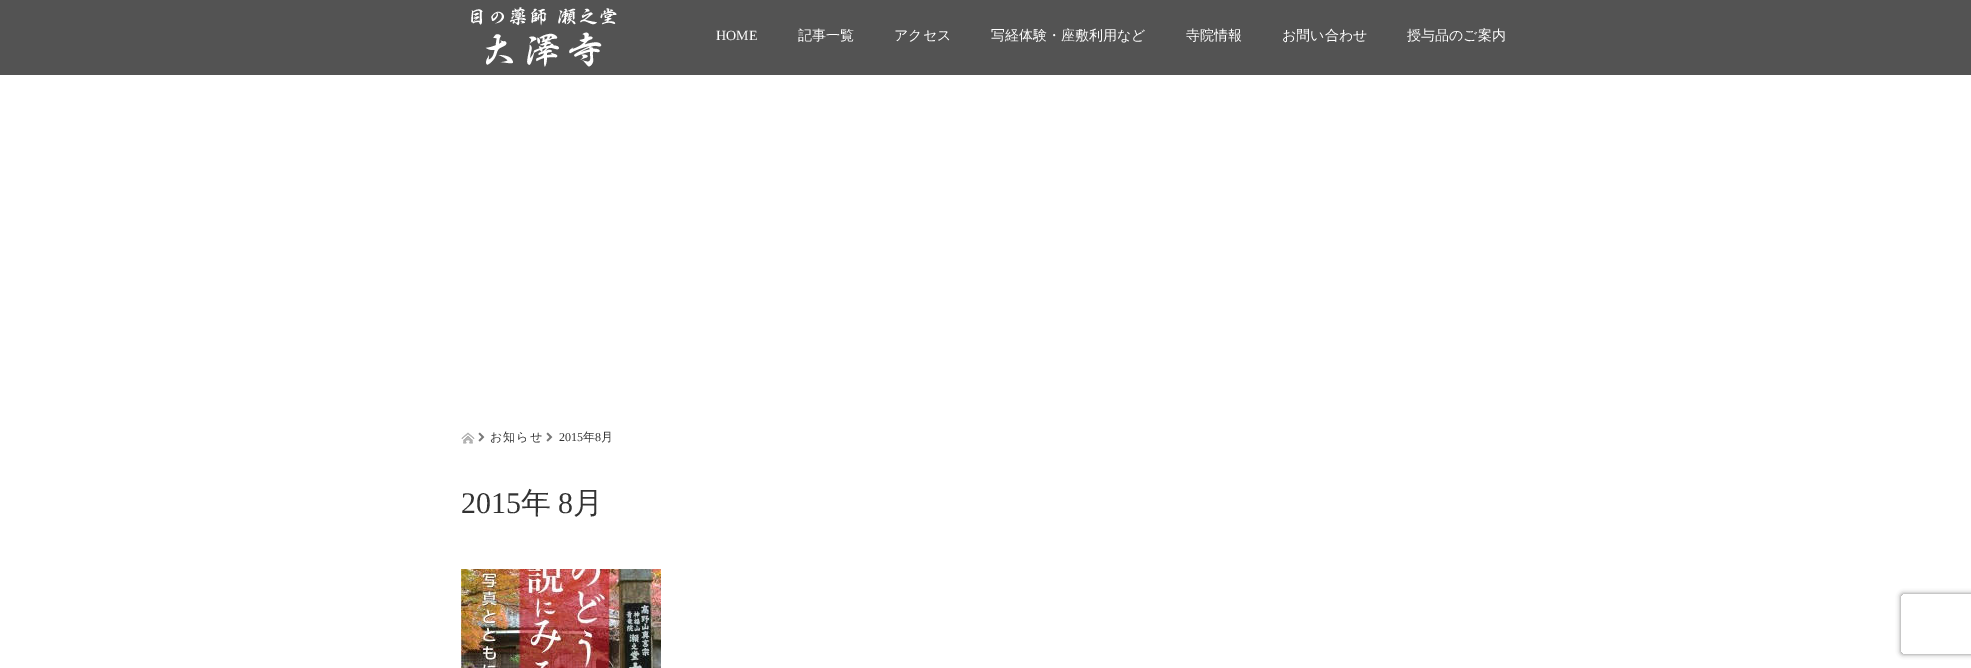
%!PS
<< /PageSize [1971 668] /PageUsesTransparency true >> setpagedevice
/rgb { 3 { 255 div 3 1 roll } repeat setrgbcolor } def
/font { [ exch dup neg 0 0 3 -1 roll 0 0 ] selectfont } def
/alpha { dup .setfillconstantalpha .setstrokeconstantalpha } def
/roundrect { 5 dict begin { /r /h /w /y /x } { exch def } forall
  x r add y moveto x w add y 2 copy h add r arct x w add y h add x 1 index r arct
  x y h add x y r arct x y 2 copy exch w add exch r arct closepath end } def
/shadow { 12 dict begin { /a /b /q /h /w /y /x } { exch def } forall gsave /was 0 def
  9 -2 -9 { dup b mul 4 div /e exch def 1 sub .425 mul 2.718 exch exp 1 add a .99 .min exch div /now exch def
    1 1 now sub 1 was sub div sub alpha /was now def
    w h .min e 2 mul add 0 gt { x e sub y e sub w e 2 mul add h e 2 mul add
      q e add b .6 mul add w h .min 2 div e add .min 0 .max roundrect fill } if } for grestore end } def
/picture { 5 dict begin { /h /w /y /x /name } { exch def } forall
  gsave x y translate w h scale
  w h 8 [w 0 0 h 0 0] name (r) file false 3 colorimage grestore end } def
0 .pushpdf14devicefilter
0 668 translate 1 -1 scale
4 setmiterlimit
255 255 255 rgb
0 0 1971 668 rectfill
83 83 83 rgb
0 0 1971 75 rectfill
(img/1.rgb) 471 7 146 60 picture
(img/2.rgb) 461 432 14 12 picture
(img/3.rgb) 478 432 7 10 picture
(img/3.rgb) 546 432 7 10 picture
(img/4.rgb) 461 569 200 99 picture
gsave
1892 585 moveto 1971 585 lineto 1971 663 lineto 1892 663 lineto closepath 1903 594 moveto 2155 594 lineto 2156 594 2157 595 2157 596 curveto 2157 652 lineto 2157 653 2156 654 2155 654 curveto 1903 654 lineto 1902 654 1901 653 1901 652 curveto 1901 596 lineto 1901 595 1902 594 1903 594 curveto closepath eoclip newpath
128 128 128 rgb
1901 594 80 60 2 2.5 1 shadow
grestore
/LiberationSerif-Regular 14 font
255 255 255 rgb
716 40 moveto (HOME) show
/WenQuanYiZenHei-Medium 14 font
[
  [(記事一覧) 798 40]
  [(アクセス) 894 40]
  [(写経体験・座敷利用など) 991 40]
  [(寺院情報) 1186 40]
  [(お問い合わせ) 1282 40]
  [(授与品のご案内) 1407 40]
] { aload pop moveto show } forall
/WenQuanYiZenHei-Medium 12 font
51 51 51 rgb
490 441 moveto 1 0 (お知らせ) ashow
/LiberationSerif-Regular 12 font
559 441 moveto (2015) show
/WenQuanYiZenHei-Medium 12 font
583 441 moveto (年) show
/LiberationSerif-Regular 12 font
595 441 moveto (8) show
/WenQuanYiZenHei-Medium 12 font
601 441 moveto (月) show
/LiberationSerif-Regular 30 font
461 513 moveto (2015) show
/WenQuanYiZenHei-Medium 30 font
521 513 moveto (年) show
/LiberationSerif-Regular 30 font
558 513 moveto (8) show
/WenQuanYiZenHei-Medium 30 font
573 513 moveto (月) show
.poppdf14devicefilter showpage
